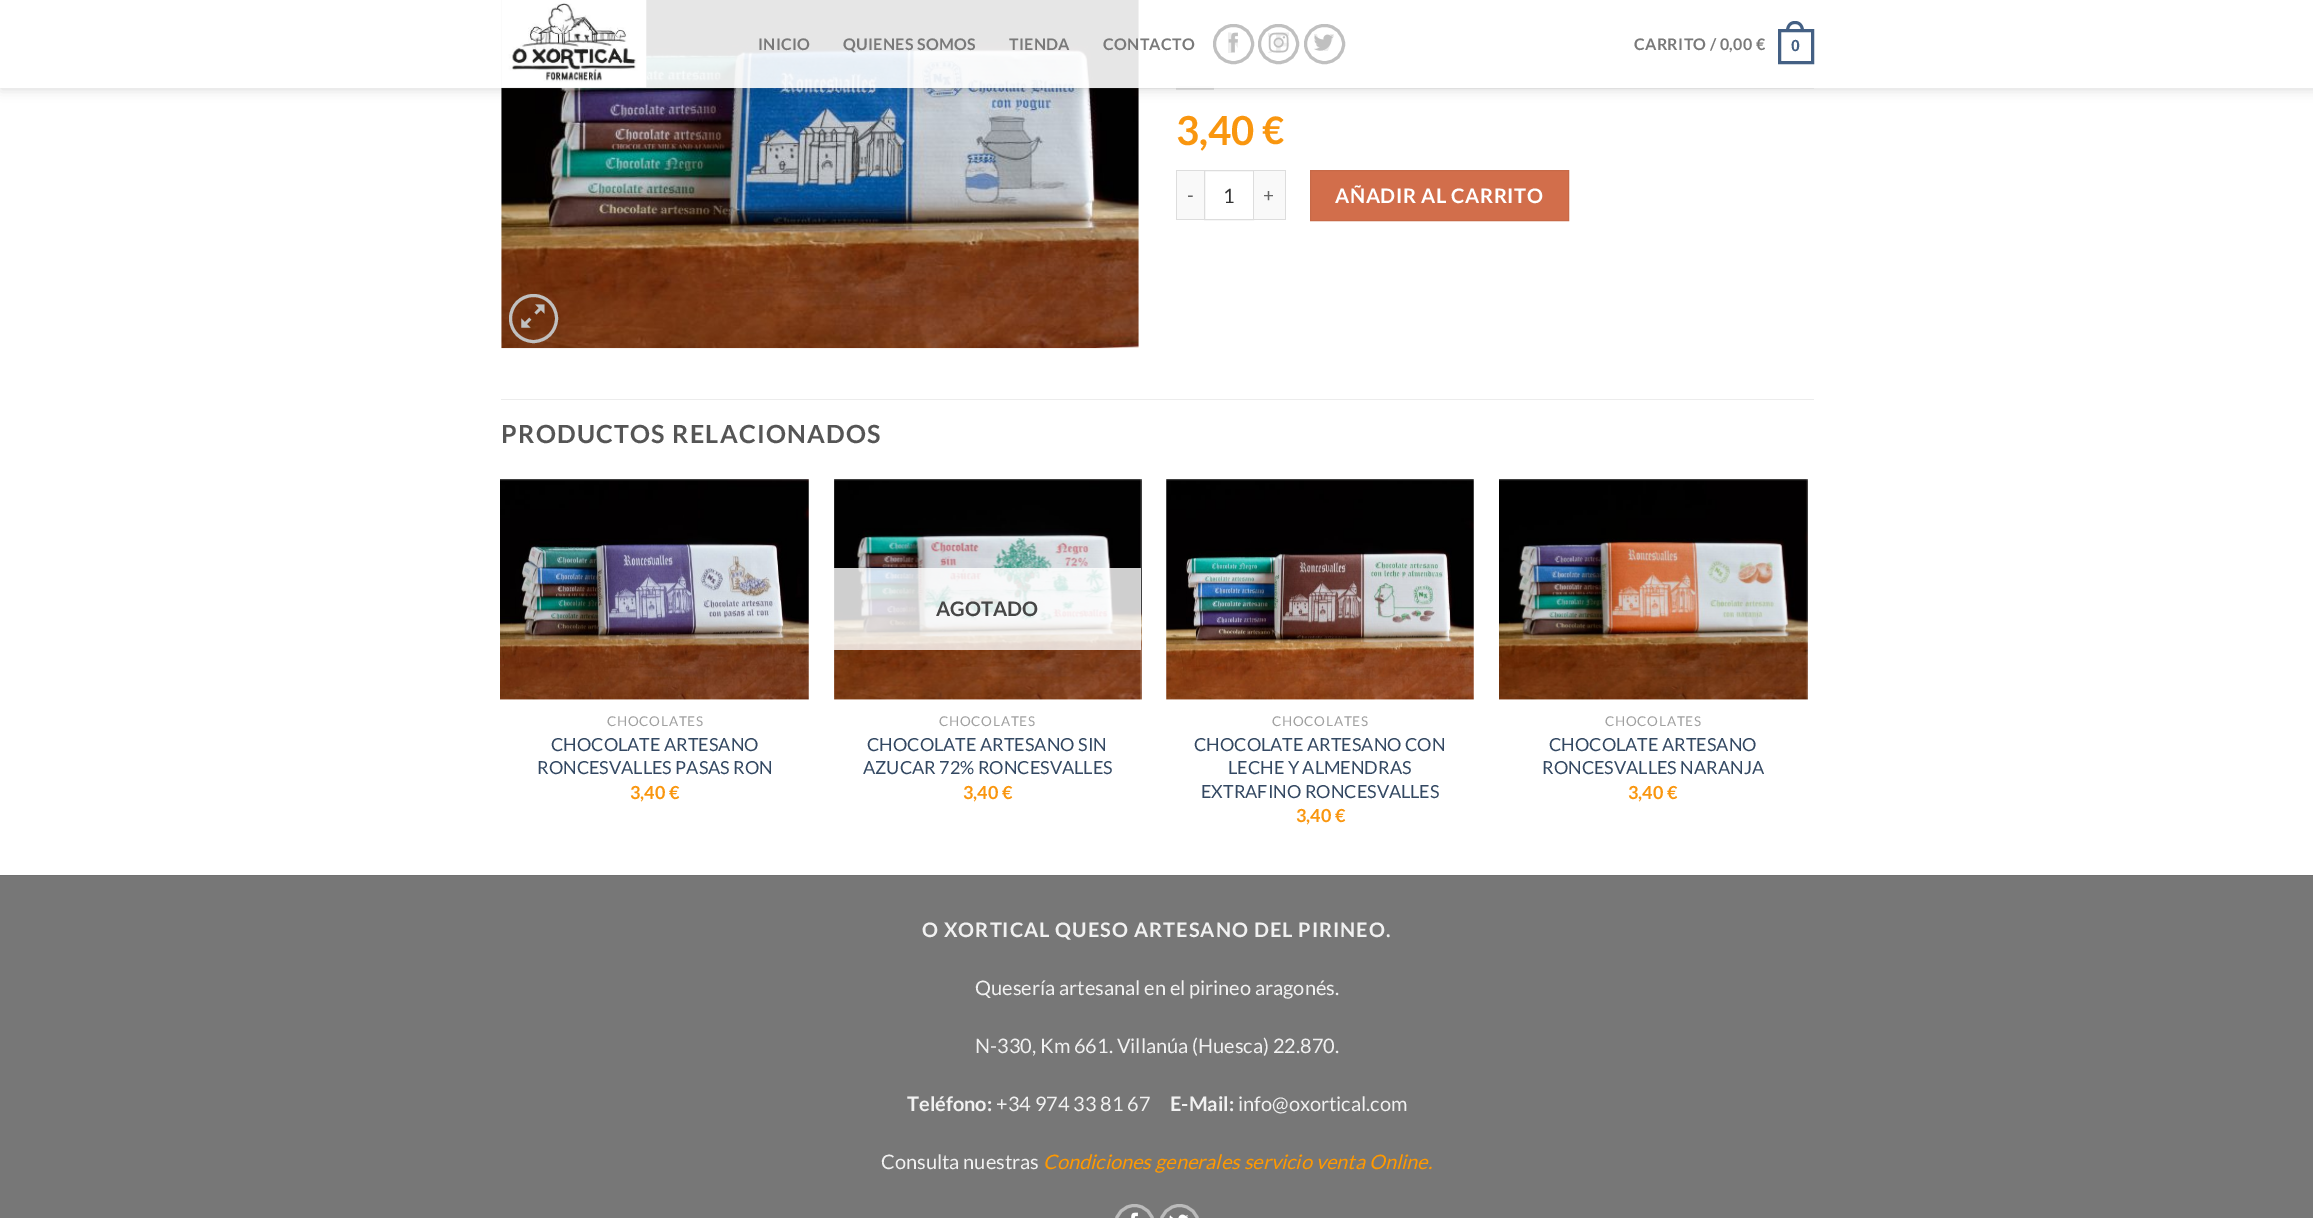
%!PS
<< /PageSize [2313 1218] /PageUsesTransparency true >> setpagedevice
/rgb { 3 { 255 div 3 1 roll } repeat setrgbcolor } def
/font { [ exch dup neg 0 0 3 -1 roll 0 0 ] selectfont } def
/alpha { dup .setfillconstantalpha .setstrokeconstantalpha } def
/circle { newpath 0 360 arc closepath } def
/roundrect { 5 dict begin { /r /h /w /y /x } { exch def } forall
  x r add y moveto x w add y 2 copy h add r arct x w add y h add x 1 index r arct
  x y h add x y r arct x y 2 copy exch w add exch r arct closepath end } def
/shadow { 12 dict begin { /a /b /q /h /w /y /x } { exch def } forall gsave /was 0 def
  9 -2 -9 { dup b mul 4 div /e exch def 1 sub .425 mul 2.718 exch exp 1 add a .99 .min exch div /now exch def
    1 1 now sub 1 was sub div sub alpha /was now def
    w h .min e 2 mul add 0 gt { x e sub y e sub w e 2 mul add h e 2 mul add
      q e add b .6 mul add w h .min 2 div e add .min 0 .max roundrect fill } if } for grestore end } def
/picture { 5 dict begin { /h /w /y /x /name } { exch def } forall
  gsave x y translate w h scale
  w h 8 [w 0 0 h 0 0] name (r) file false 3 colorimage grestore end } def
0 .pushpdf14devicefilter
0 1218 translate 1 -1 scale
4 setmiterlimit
255 255 255 rgb
0 0 2313 1218 rectfill
(img/5.rgb) 501 0 638 349 picture
230 230 230 rgb
1176 86 38 4 rectfill
gsave
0 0 moveto 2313 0 lineto 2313 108 lineto 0 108 lineto closepath 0 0 moveto 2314 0 lineto 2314 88 lineto 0 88 lineto closepath eoclip newpath
0 0 0 rgb
1 1 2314 88 0 6 0.15 shadow
grestore
0.9 alpha
255 255 255 rgb
0 0 2313 88 rectfill
1 alpha
(img/1.rgb) 501 0 146 88 picture
192 192 192 rgb
3 setlinewidth
1214.5 25.5 38 37 18.5 roundrect stroke
(img/2.rgb) 1228 32 10 21 picture
1259.5 25.5 38 37 18.5 roundrect stroke
(img/3.rgb) 1268 32 21 21 picture
1305.5 25.5 38 37 18.5 roundrect stroke
(img/4.rgb) 1314 34 20 17 picture
68 96 132 rgb
1779.5 30.5 33 32 rectstroke
1795 21 moveto 1801 21 1804 26 1804 31 curveto 1786 31 lineto 1786 26 1789 21 1795 21 curveto closepath 1795 24 moveto 1799.5 24 1801 27.5 1801 31 curveto 1789 31 lineto 1789 27.5 1790.5 24 1795 24 curveto closepath eofill
0.1 alpha
119 119 119 rgb
501 88 1313 1 rectfill
1 alpha
192 192 192 rgb
533.5 318.5 23 circle stroke
(img/6.rgb) 521 304 24 24 picture
[
  [1177 171 27 48 249 249 249]
  [1176 170 28 1 221 221 221]
  [1176 219 28 1 221 221 221]
  [1176 170 1 50 221 221 221]
] { aload pop rgb rectfill } forall
1 setlinewidth
1204.5 170.5 49 49 rectstroke
[
  [1254 171 31 48 249 249 249]
  [1254 170 32 1 221 221 221]
  [1285 170 1 50 221 221 221]
  [1254 219 32 1 221 221 221]
] { aload pop rgb rectfill } forall
210 110 75 rgb
1310.5 170.5 moveto 1568.5 170.5 lineto 1568.5 220.5 lineto 1310.5 220.5 lineto closepath gsave fill grestore
200 105 71 rgb
stroke
236 236 236 rgb
501 399 1313 1 rectfill
(img/7.rgb) 500 479 309 221 picture
(img/8.rgb) 834 479 308 221 picture
0.81 alpha
255 255 255 rgb
834 568 307 82 rectfill
1 alpha
(img/9.rgb) 1166 479 308 221 picture
(img/10.rgb) 1499 479 309 221 picture
119 119 119 rgb
0 876 2313 342 rectfill
113 113 113 rgb
0 875 2313 1 rectfill
187 187 187 rgb
3 setlinewidth
1115.5 1205.5 38 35 19 roundrect stroke
(img/11.rgb) 1131 1212 7 6 picture
1160.5 1205.5 38 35 19 roundrect stroke
(img/12.rgb) 1169 1214 20 4 picture
/Lato-Bold 16 font
121 121 121 rgb
758 50 moveto 0.3 0 (INICIO) ashow
843 50 moveto 0.3 0 (QUIENES SOMOS) ashow
1009 50 moveto 0.3 0 (TIENDA) ashow
1103 50 moveto 0.3 0 (CONTACTO) ashow
1634 50 moveto 0.3 0 (CARRITO / 0,00 €) ashow
/LiberationSans-Bold 16 font
68 96 132 rgb
1791 51 moveto 0.3 0 (0) ashow
/Lato-Bold 40 font
249 150 15 rgb
1176 145 moveto (3,40) show
/Lato-Bold 38 font
1262 144 moveto (€) show
/Lato-Regular 19 font
102 102 102 rgb
1187 202 moveto 1 0 (-) ashow
/Lato-Regular 20 font
51 51 51 rgb
1223 203 moveto (1) show
/Lato-Regular 19 font
102 102 102 rgb
1263 202 moveto 1 0 (+) ashow
/Lato-Bold 20 font
255 255 255 rgb
1335 203 moveto 0.6 0 (AÑADIR AL CARRITO) ashow
/Lato-Bold 25 font
85 85 85 rgb
501 443 moveto 1.25 0 (PRODUCTOS RELACIONADOS) ashow
/Lato-Regular 13.5 font
160 160 160 rgb
607 726 moveto 0.75 0 (CHOCOLATES) ashow
/Lato-Regular 18 font
51 72 98 rgb
551 751 moveto (CHOCOLATE ARTESANO) show
537 774 moveto (RONCESVALLES PASAS RON) show
/Lato-Bold 18 font
249 150 15 rgb
630 799 moveto (3,40 €) show
/Lato-Bold 20 font
70 70 70 rgb
936 616 moveto (AGOTADO) show
/Lato-Regular 13.5 font
160 160 160 rgb
939 726 moveto 0.75 0 (CHOCOLATES) ashow
/Lato-Regular 18 font
51 72 98 rgb
867 751 moveto (CHOCOLATE ARTESANO SIN) show
863 774 moveto (AZUCAR 72% RONCESVALLES) show
/Lato-Bold 18 font
249 150 15 rgb
963 799 moveto (3,40 €) show
/Lato-Regular 13.5 font
160 160 160 rgb
1272 726 moveto 0.75 0 (CHOCOLATES) ashow
/Lato-Regular 18 font
51 72 98 rgb
[
  [(CHOCOLATE ARTESANO CON) 1194 751]
  [(LECHE Y ALMENDRAS) 1228 774]
  [(EXTRAFINO RONCESVALLES) 1201 798]
] { aload pop moveto show } forall
/Lato-Bold 18 font
249 150 15 rgb
1296 822 moveto (3,40 €) show
/Lato-Regular 13.5 font
160 160 160 rgb
1605 726 moveto 0.75 0 (CHOCOLATES) ashow
/Lato-Regular 18 font
51 72 98 rgb
1549 751 moveto (CHOCOLATE ARTESANO) show
1542 774 moveto (RONCESVALLES NARANJA) show
/Lato-Bold 18 font
249 150 15 rgb
1628 799 moveto (3,40 €) show
/Lato-Bold 20 font
241 241 241 rgb
922 937 moveto 1 0 (O XORTICAL QUESO ARTESANO DEL PIRINEO.) ashow
/Lato-Regular 20 font
975 995 moveto (Quesería artesanal en el pirineo aragonés.) show
975 1053 moveto (N-330, Km 661. Villanúa \(Huesca\) 22.870.) show
/Lato-Bold 20 font
907 1111 moveto (Teléfono:) show
/Lato-Regular 20 font
996 1111 moveto (+34 974 33 81 67) show
/Lato-Bold 20 font
1170 1111 moveto (E-Mail:) show
/Lato-Regular 20 font
1238 1111 moveto (info@oxortical.com) show
881 1169 moveto (Consulta nuestras) show
/Lato-Italic 20 font
255 153 0 rgb
1043 1169 moveto (Condiciones generales servicio venta Online.) show
.poppdf14devicefilter showpage
